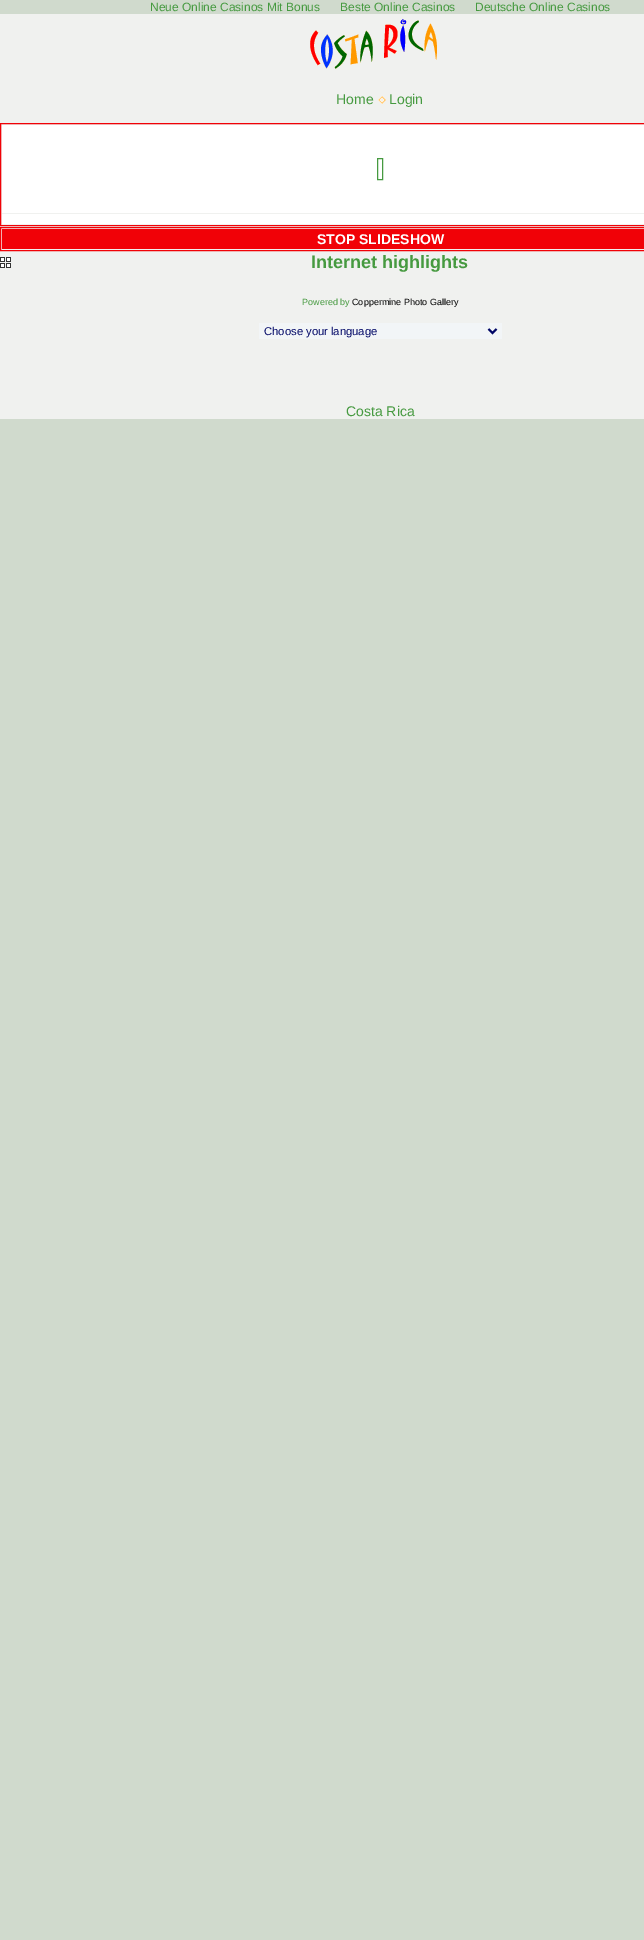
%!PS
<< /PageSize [644 1940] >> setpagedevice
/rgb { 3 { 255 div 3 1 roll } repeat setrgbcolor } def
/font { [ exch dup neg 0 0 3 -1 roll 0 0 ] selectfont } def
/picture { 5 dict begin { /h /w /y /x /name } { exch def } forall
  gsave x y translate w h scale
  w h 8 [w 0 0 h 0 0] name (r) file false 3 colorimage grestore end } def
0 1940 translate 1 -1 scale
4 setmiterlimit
208 218 205 rgb
0 0 644 1940 rectfill
240 241 239 rgb
0 14 644 405 rectfill
(img/1.rgb) 310 19 127 50 picture
(img/2.rgb) 378 96 8 8 picture
241 1 7 rgb
0.5 123.5 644 102 rectstroke
255 255 255 rgb
2 125 642 88 rectfill
70 154 64 rgb
377.5 158.5 5 21 rectstroke
255 255 255 rgb
2 214 642 10 rectfill
241 1 7 rgb
0.5 227.5 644 23 rectstroke
2 229 642 20 rectfill
(img/3.rgb) 0 257 11 11 picture
242 245 247 rgb
259 323 243 16 rectfill
0 6 102 rgb
2 setlinewidth
488.5 329 moveto 492.5 333 lineto 496.5 329 lineto stroke
/LiberationSans-Regular 12 font
70 154 64 rgb
[
  [(Neue Online Casinos Mit Bonus) 150 11]
  [(Beste Online Casinos) 340 11]
  [(Deutsche Online Casinos) 475 11]
] { aload pop moveto show } forall
/LiberationSans-Regular 14 font
336 104 moveto (Home) show
389 104 moveto (Login) show
/LiberationSans-Bold 14 font
255 255 255 rgb
317 244 moveto (STOP SLIDESHOW) show
/LiberationSans-Bold 18 font
70 154 64 rgb
311 268 moveto (Internet highlights) show
/LiberationSans-Regular 9 font
302 305 moveto (Powered by) show
0 0 0 rgb
352 305 moveto (Coppermine Photo Gallery) show
/LiberationSans-Regular 11.25 font
0 6 102 rgb
264 335 moveto (Choose your language) show
/LiberationSans-Regular 14 font
70 154 64 rgb
346 416 moveto (Costa Rica) show
showpage
